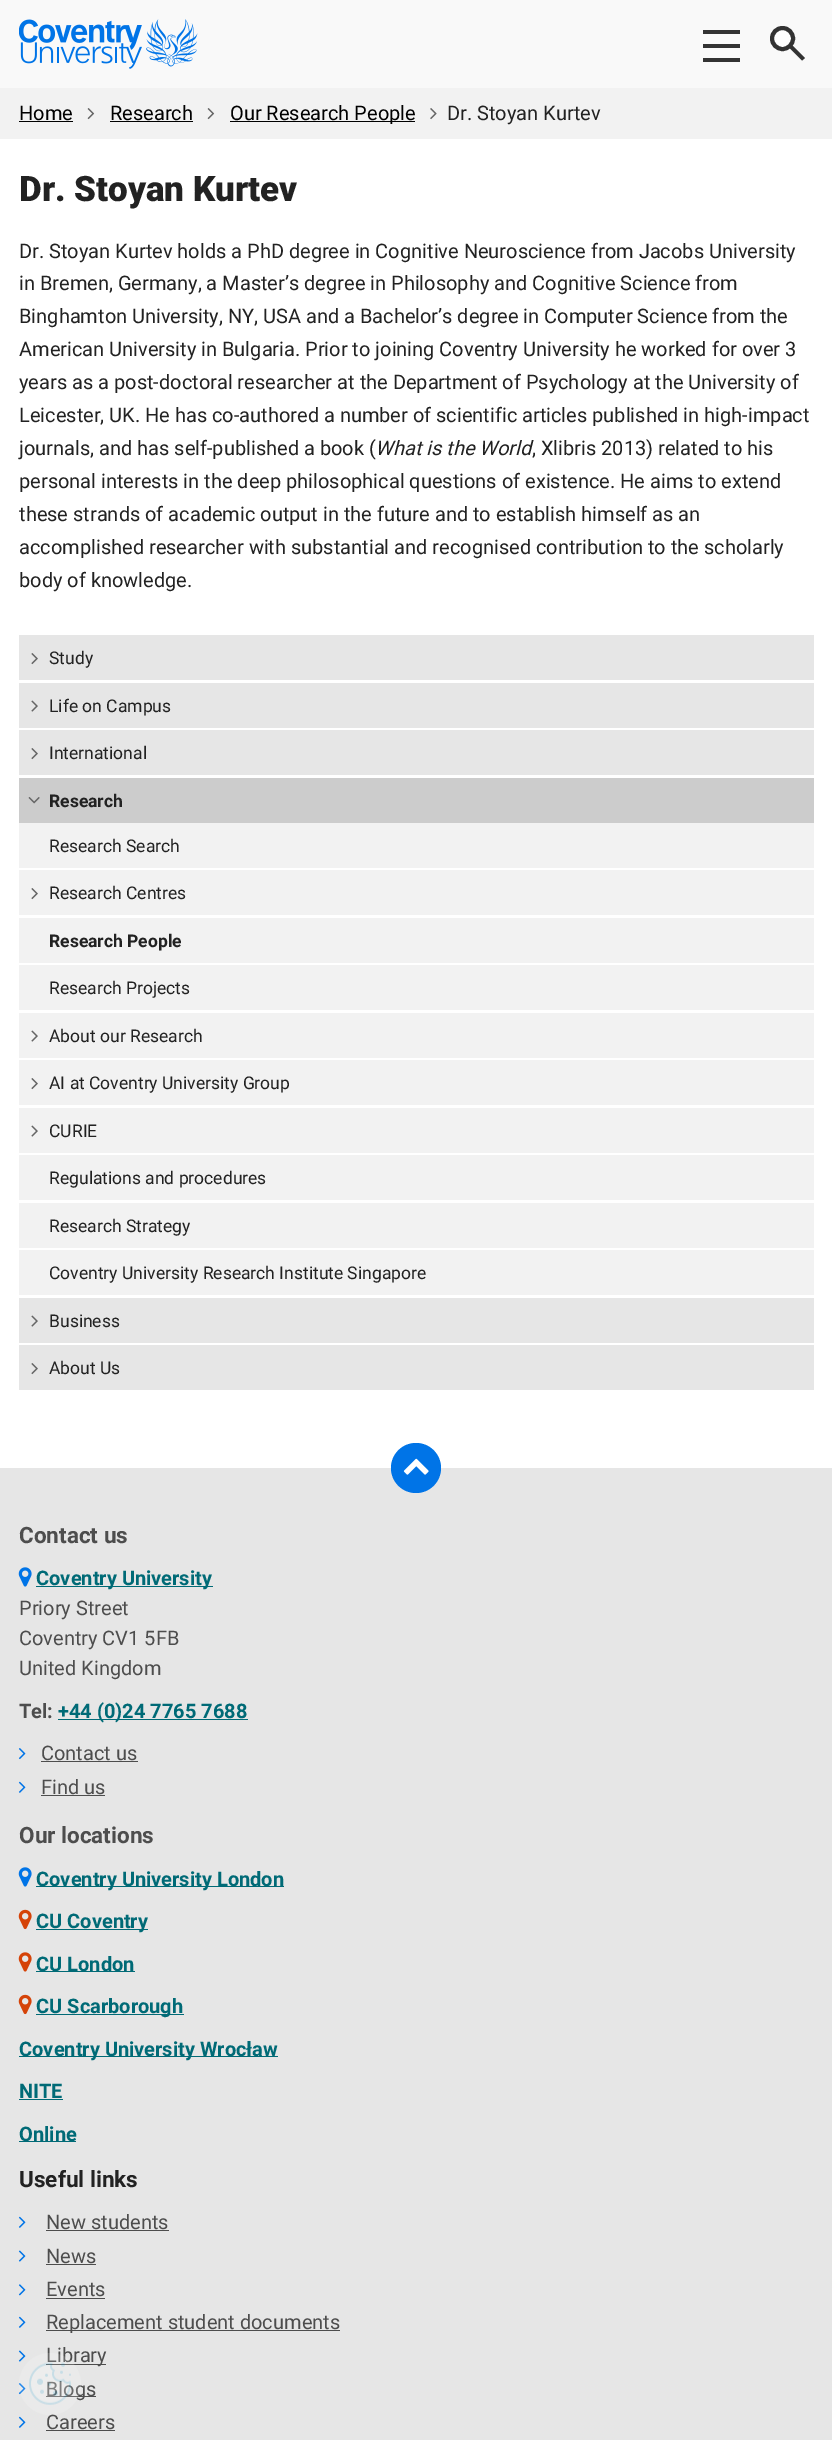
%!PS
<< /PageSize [832 2440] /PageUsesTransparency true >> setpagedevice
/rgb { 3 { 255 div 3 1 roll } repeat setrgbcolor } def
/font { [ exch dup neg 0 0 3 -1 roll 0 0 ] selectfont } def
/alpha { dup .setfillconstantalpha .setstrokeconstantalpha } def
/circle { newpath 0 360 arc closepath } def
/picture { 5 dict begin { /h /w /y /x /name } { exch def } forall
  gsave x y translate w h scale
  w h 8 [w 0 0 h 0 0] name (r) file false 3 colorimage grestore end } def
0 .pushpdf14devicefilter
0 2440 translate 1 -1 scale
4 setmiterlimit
255 255 255 rgb
0 0 832 2440 rectfill
249 249 249 rgb
0 0 832 88 rectfill
(img/1.rgb) 19 19 179 50 picture
[
  [703 44 37 4 51 51 51]
  [703 30 37 4 51 51 51]
  [703 58 37 4 51 51 51]
] { aload pop rgb rectfill } forall
774 32 moveto 776.5 29.5 lineto 805 58 lineto 802 60.5 lineto closepath fill
255 255 255 rgb
782.5 38.5 10.5 circle gsave fill grestore
51 51 51 rgb
4 setlinewidth
stroke
242 242 242 rgb
0 88 832 51 rectfill
0 0 0 rgb
19 121 54 1 rectfill
(img/2.rgb) 87 108 8 12 picture
110 121 83 1 rectfill
(img/2.rgb) 207 108 8 12 picture
230 121 185 1 rectfill
(img/3.rgb) 430 108 7 12 picture
230 230 230 rgb
19 635 795 45 rectfill
(img/4.rgb) 31 653 7 12 picture
19 683 795 45 rectfill
(img/5.rgb) 31 700 7 12 picture
19 730 795 45 rectfill
(img/4.rgb) 31 748 7 12 picture
204 204 204 rgb
19 778 795 45 rectfill
(img/6.rgb) 28 797 12 7 picture
242 242 242 rgb
19 823 795 45 rectfill
19 870 795 45 rectfill
(img/7.rgb) 31 888 7 12 picture
[
  [19 918 795 45 242 242 242]
  [19 965 795 45 242 242 242]
  [19 1013 795 45 242 242 242]
] { aload pop rgb rectfill } forall
(img/8.rgb) 31 1030 7 12 picture
19 1060 795 45 rectfill
(img/7.rgb) 31 1078 7 12 picture
19 1108 795 45 rectfill
(img/8.rgb) 31 1125 7 12 picture
[
  [19 1155 795 45 242 242 242]
  [19 1203 795 45 242 242 242]
  [19 1250 795 45 242 242 242]
  [19 1298 795 45 230 230 230]
] { aload pop rgb rectfill } forall
(img/5.rgb) 31 1315 7 12 picture
19 1345 795 45 rectfill
(img/4.rgb) 31 1363 7 12 picture
0 1468 832 972 rectfill
0 116 231 rgb
416 1468 25 circle fill
(img/9.rgb) 403 1458 26 17 picture
(img/10.rgb) 18 1567 14 20 picture
0 106 118 rgb
36 1586 177 1 rectfill
58 1719 190 1 rectfill
(img/11.rgb) 18 1748 8 12 picture
77 77 77 rgb
41 1761 97 1 rectfill
(img/12.rgb) 18 1781 8 12 picture
41 1795 64 1 rectfill
(img/10.rgb) 18 1867 14 20 picture
0 106 118 rgb
36 1886 248 1 rectfill
(img/13.rgb) 18 1909 14 21 picture
36 1929 112 1 rectfill
(img/14.rgb) 18 1952 14 20 picture
36 1971 99 1 rectfill
(img/13.rgb) 18 1994 14 21 picture
[
  [36 2014 148 1 0 106 118]
  [19 2056 259 1 0 106 118]
  [19 2099 44 1 0 106 118]
  [19 2141 57 1 0 106 118]
] { aload pop rgb rectfill } forall
(img/12.rgb) 18 2216 8 12 picture
77 77 77 rgb
46 2230 123 1 rectfill
(img/15.rgb) 18 2250 8 12 picture
46 2264 50 1 rectfill
(img/16.rgb) 18 2284 8 12 picture
46 2298 59 1 rectfill
(img/12.rgb) 18 2316 8 12 picture
46 2330 294 1 rectfill
(img/15.rgb) 18 2350 8 12 picture
46 2364 60 1 rectfill
(img/11.rgb) 18 2383 8 12 picture
46 2396 50 1 rectfill
(img/12.rgb) 18 2416 8 12 picture
46 2430 69 1 rectfill
/Roboto-Regular 20 font
0 0 0 rgb
[
  [(Home) 19 120]
  [(Research) 110 120]
  [(Our Research People) 230 120]
] { aload pop moveto show } forall
34 34 34 rgb
447 120 moveto (Dr. Stoyan Kurtev) show
/Roboto-Black 35 font
19 201 moveto (Dr. Stoyan Kurtev) show
/Roboto-Regular 20 font
[
  [(Dr. Stoyan Kurtev holds a PhD degree in Cognitive Neuroscience from Jacobs University) 19 258]
  [(in Bremen, Germany, a Master’s degree in Philosophy and Cognitive Science from) 19 290]
  [(Binghamton University, NY, USA and a Bachelor’s degree in Computer Science from the) 19 323]
  [(American University in Bulgaria. Prior to joining Coventry University he worked for over 3) 19 356]
  [(years as a post-doctoral researcher at the Department of Psychology at the University of) 19 389]
  [(Leicester, UK. He has co-authored a number of scientific articles published in high-impact) 19 422]
  [(journals, and has self-published a book \() 19 455]
] { aload pop moveto show } forall
/Roboto-Italic 20 font
375 455 moveto (What is the World) show
/Roboto-Regular 20 font
[
  [(, Xlibris 2013\) related to his) 532 455]
  [(personal interests in the deep philosophical questions of existence. He aims to extend) 19 488]
  [(these strands of academic output in the future and to establish himself as an) 19 521]
  [(accomplished researcher with substantial and recognised contribution to the scholarly) 19 554]
  [(body of knowledge.) 19 587]
] { aload pop moveto show } forall
/Roboto-Regular 17.5 font
[
  [(Study) 49 664]
  [(Life on Campus) 49 712]
  [(International) 49 759]
] { aload pop moveto show } forall
/Roboto-Bold 17.5 font
49 807 moveto (Research) show
/Roboto-Regular 17.5 font
49 852 moveto (Research Search) show
49 899 moveto (Research Centres) show
/Roboto-Bold 17.5 font
49 947 moveto (Research People) show
/Roboto-Regular 17.5 font
[
  [(Research Projects) 49 994]
  [(About our Research) 49 1042]
  [(AI at Coventry University Group) 49 1089]
  [(CURIE) 49 1137]
  [(Regulations and procedures) 49 1184]
  [(Research Strategy) 49 1232]
  [(Coventry University Research Institute Singapore) 49 1279]
  [(Business) 49 1327]
  [(About Us) 49 1374]
] { aload pop moveto show } forall
/Roboto-Bold 22.5 font
77 77 77 rgb
19 1543 moveto (Contact us) show
/Roboto-Bold 20 font
0 106 118 rgb
36 1585 moveto (Coventry University) show
/Roboto-Regular 20 font
77 77 77 rgb
[
  [(Priory Street) 19 1615]
  [(Coventry CV1 5FB) 19 1645]
  [(United Kingdom) 19 1675]
] { aload pop moveto show } forall
/Roboto-Bold 20 font
19 1718 moveto (Tel:) show
0 106 118 rgb
58 1718 moveto (+44 \(0\)24 7765 7688) show
/Roboto-Regular 20 font
77 77 77 rgb
41 1760 moveto (Contact us) show
41 1794 moveto (Find us) show
/Roboto-Bold 22.5 font
19 1843 moveto (Our locations) show
/Roboto-Bold 20 font
0 106 118 rgb
[
  [(Coventry University London) 36 1886]
  [(CU Coventry) 36 1928]
  [(CU London) 36 1971]
  [(CU Scarborough) 36 2013]
  [(Coventry University Wrocław) 19 2056]
  [(NITE) 19 2098]
  [(Online) 19 2141]
] { aload pop moveto show } forall
/Roboto-Bold 22.5 font
34 34 34 rgb
19 2187 moveto (Useful links) show
/Roboto-Regular 20 font
77 77 77 rgb
[
  [(New students) 46 2229]
  [(News) 46 2263]
  [(Events) 46 2296]
  [(Replacement student documents) 46 2329]
  [(Library) 46 2362]
  [(Blogs) 46 2396]
  [(Careers) 46 2429]
] { aload pop moveto show } forall
0.15 alpha
255 255 255 rgb
50 2384 31 circle fill
1 alpha
(img/17.rgb) 29 2362 42 43 picture
.poppdf14devicefilter showpage
